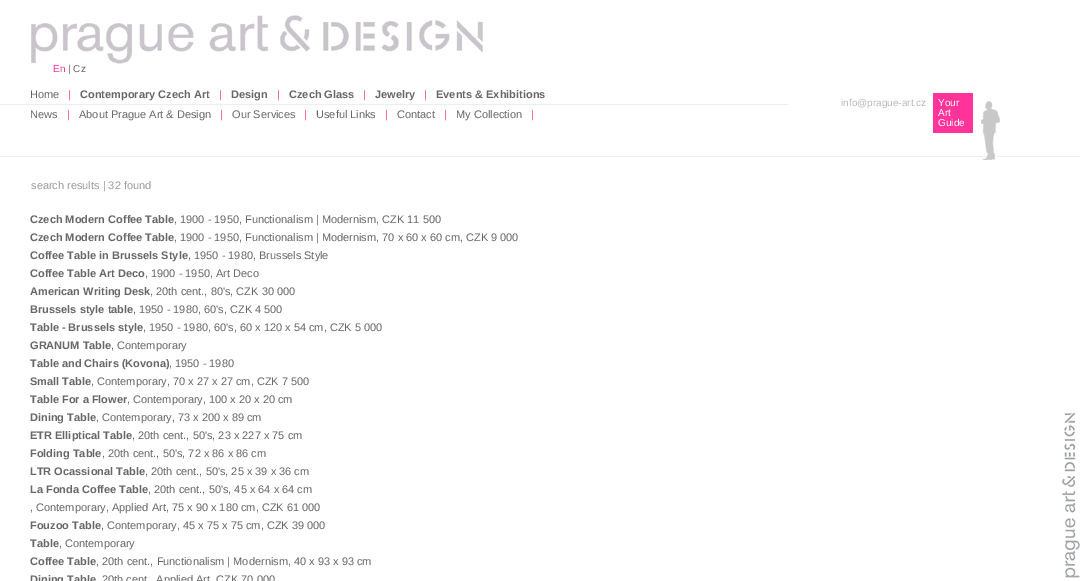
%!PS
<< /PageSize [1080 581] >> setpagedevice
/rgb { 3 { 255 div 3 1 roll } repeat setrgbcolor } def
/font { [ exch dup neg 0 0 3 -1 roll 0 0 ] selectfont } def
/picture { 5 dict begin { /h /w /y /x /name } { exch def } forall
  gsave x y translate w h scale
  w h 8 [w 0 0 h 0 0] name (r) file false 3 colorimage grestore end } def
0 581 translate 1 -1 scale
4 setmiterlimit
255 255 255 rgb
0 0 1080 581 rectfill
(img/1.rgb) 1062 413 18 165 picture
238 238 238 rgb
0 156 1080 1 rectfill
(img/2.rgb) 981 101 19 59 picture
(img/3.rgb) 31 15 452 49 picture
0 104 788 1 rectfill
255 51 153 rgb
933 93 40 40 rectfill
/LiberationSans-Regular 10 font
53 72 moveto (En) show
103 103 103 rgb
68 72 moveto (| Cz) show
/LiberationSans-Regular 11 font
30 98 moveto (Home) show
255 51 153 rgb
68 98 moveto (|) show
/LiberationSans-Bold 11 font
103 103 103 rgb
80 98 moveto (Contemporary Czech Art) show
/LiberationSans-Regular 11 font
255 51 153 rgb
219 98 moveto (|) show
/LiberationSans-Bold 11 font
103 103 103 rgb
231 98 moveto (Design) show
/LiberationSans-Regular 11 font
255 51 153 rgb
277 98 moveto (|) show
/LiberationSans-Bold 11 font
103 103 103 rgb
289 98 moveto (Czech Glass) show
/LiberationSans-Regular 11 font
255 51 153 rgb
363 98 moveto (|) show
/LiberationSans-Bold 11 font
103 103 103 rgb
375 98 moveto (Jewelry) show
/LiberationSans-Regular 11 font
255 51 153 rgb
424 98 moveto (|) show
/LiberationSans-Bold 11 font
103 103 103 rgb
436 98 moveto (Events & Exhibitions) show
/LiberationSans-Regular 11 font
30 118 moveto (News) show
255 51 153 rgb
67 118 moveto (|) show
103 103 103 rgb
79 118 moveto (About Prague Art & Design) show
255 51 153 rgb
220 118 moveto (|) show
103 103 103 rgb
232 118 moveto (Our Services) show
255 51 153 rgb
304 118 moveto (|) show
103 103 103 rgb
316 118 moveto (Useful Links) show
255 51 153 rgb
385 118 moveto (|) show
103 103 103 rgb
397 118 moveto (Contact) show
255 51 153 rgb
444 118 moveto (|) show
103 103 103 rgb
456 118 moveto (My Collection) show
255 51 153 rgb
531 118 moveto (|) show
/LiberationSans-Regular 10 font
184 184 184 rgb
841 106 moveto (info@prague-art.cz) show
255 255 255 rgb
[
  [(Your) 938 106]
  [(Art) 938 116]
  [(Guide) 938 126]
] { aload pop moveto show } forall
/LiberationSans-Regular 11 font
154 154 154 rgb
31 189 moveto (search results | 32 found) show
/LiberationSans-Bold 11 font
103 103 103 rgb
30 223 moveto (Czech Modern Coffee Table) show
/LiberationSans-Regular 11 font
174 223 moveto (, 1900 - 1950, Functionalism | Modernism, CZK 11 500) show
/LiberationSans-Bold 11 font
30 241 moveto (Czech Modern Coffee Table) show
/LiberationSans-Regular 11 font
174 241 moveto (, 1900 - 1950, Functionalism | Modernism, 70 x 60 x 60 cm, CZK 9 000) show
/LiberationSans-Bold 11 font
30 259 moveto (Coffee Table in Brussels Style) show
/LiberationSans-Regular 11 font
188 259 moveto (, 1950 - 1980, Brussels Style) show
/LiberationSans-Bold 11 font
30 277 moveto (Coffee Table Art Deco) show
/LiberationSans-Regular 11 font
145 277 moveto (, 1900 - 1950, Art Deco) show
/LiberationSans-Bold 11 font
30 295 moveto (American Writing Desk) show
/LiberationSans-Regular 11 font
150 295 moveto (, 20th cent., 80's, CZK 30 000) show
/LiberationSans-Bold 11 font
30 313 moveto (Brussels style table) show
/LiberationSans-Regular 11 font
133 313 moveto (, 1950 - 1980, 60's, CZK 4 500) show
/LiberationSans-Bold 11 font
30 331 moveto (Table - Brussels style) show
/LiberationSans-Regular 11 font
143 331 moveto (, 1950 - 1980, 60's, 60 x 120 x 54 cm, CZK 5 000) show
/LiberationSans-Bold 11 font
30 349 moveto (GRANUM Table) show
/LiberationSans-Regular 11 font
111 349 moveto (, Contemporary) show
/LiberationSans-Bold 11 font
30 367 moveto (Table and Chairs \(Kovona\)) show
/LiberationSans-Regular 11 font
169 367 moveto (, 1950 - 1980) show
/LiberationSans-Bold 11 font
30 385 moveto (Small Table) show
/LiberationSans-Regular 11 font
91 385 moveto (, Contemporary, 70 x 27 x 27 cm, CZK 7 500) show
/LiberationSans-Bold 11 font
30 403 moveto (Table For a Flower) show
/LiberationSans-Regular 11 font
127 403 moveto (, Contemporary, 100 x 20 x 20 cm) show
/LiberationSans-Bold 11 font
30 421 moveto (Dining Table) show
/LiberationSans-Regular 11 font
96 421 moveto (, Contemporary, 73 x 200 x 89 cm) show
/LiberationSans-Bold 11 font
30 439 moveto (ETR Elliptical Table) show
/LiberationSans-Regular 11 font
132 439 moveto (, 20th cent., 50's, 23 x 227 x 75 cm) show
/LiberationSans-Bold 11 font
30 457 moveto (Folding Table) show
/LiberationSans-Regular 11 font
102 457 moveto (, 20th cent., 50's, 72 x 86 x 86 cm) show
/LiberationSans-Bold 11 font
30 475 moveto (LTR Ocassional Table) show
/LiberationSans-Regular 11 font
145 475 moveto (, 20th cent., 50's, 25 x 39 x 36 cm) show
/LiberationSans-Bold 11 font
30 493 moveto (La Fonda Coffee Table) show
/LiberationSans-Regular 11 font
148 493 moveto (, 20th cent., 50's, 45 x 64 x 64 cm) show
30 511 moveto (, Contemporary, Applied Art, 75 x 90 x 180 cm, CZK 61 000) show
/LiberationSans-Bold 11 font
30 529 moveto (Fouzoo Table) show
/LiberationSans-Regular 11 font
101 529 moveto (, Contemporary, 45 x 75 x 75 cm, CZK 39 000) show
/LiberationSans-Bold 11 font
30 547 moveto (Table) show
/LiberationSans-Regular 11 font
59 547 moveto (, Contemporary) show
/LiberationSans-Bold 11 font
30 565 moveto (Coffee Table) show
/LiberationSans-Regular 11 font
96 565 moveto (, 20th cent., Functionalism | Modernism, 40 x 93 x 93 cm) show
/LiberationSans-Bold 11 font
30 583 moveto (Dining Table) show
/LiberationSans-Regular 11 font
102 583 moveto (20th cent., Applied Art, CZK 70 000) show
showpage
